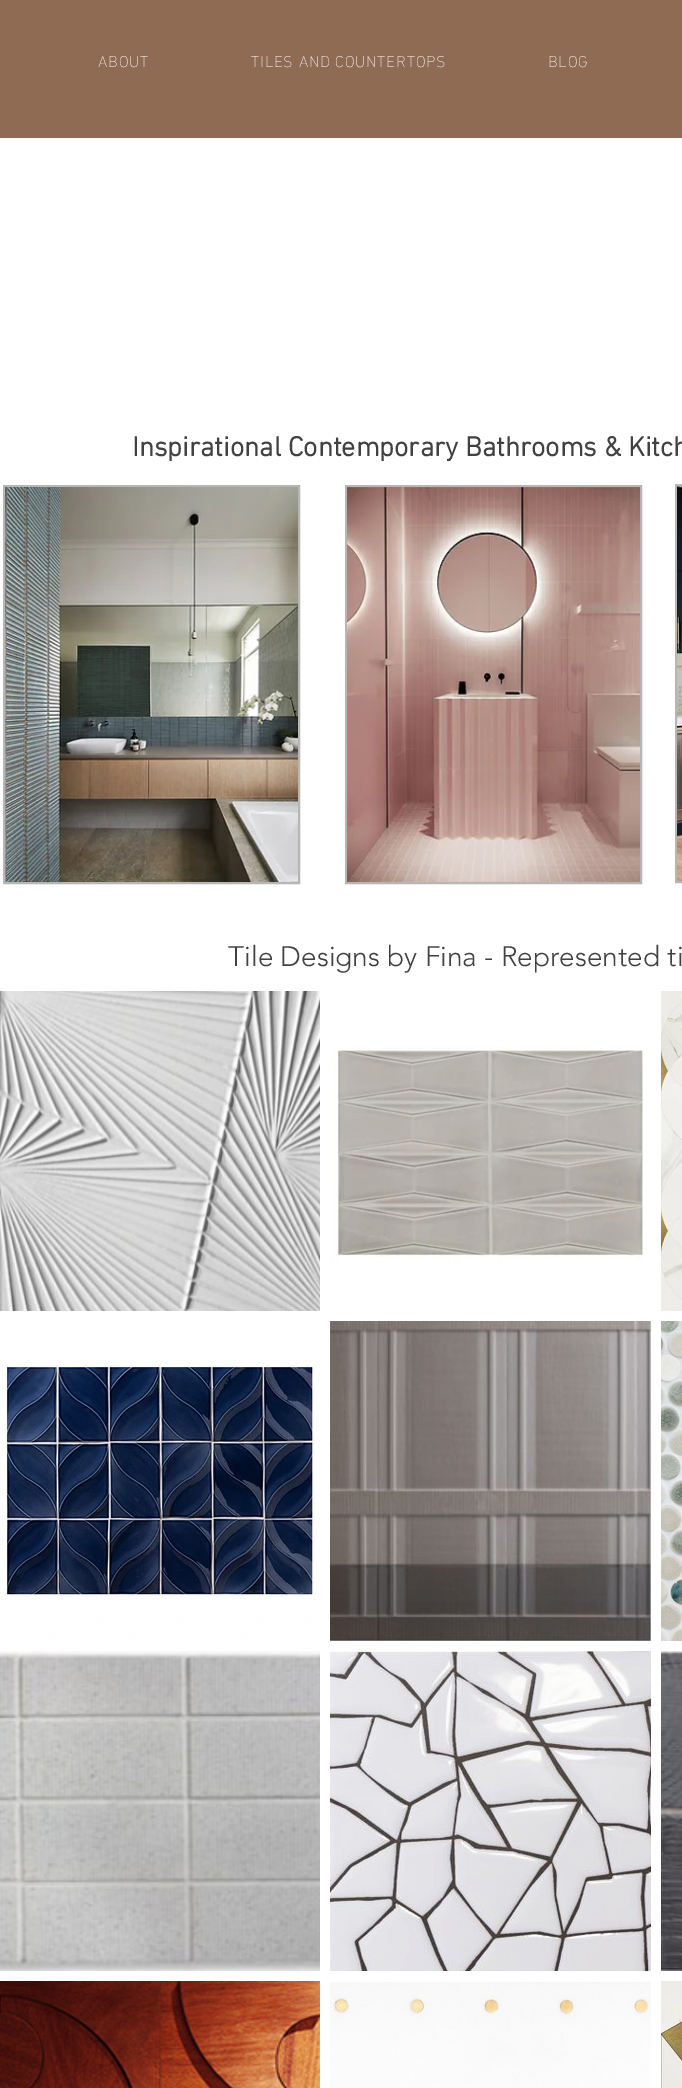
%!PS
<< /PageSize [682 2088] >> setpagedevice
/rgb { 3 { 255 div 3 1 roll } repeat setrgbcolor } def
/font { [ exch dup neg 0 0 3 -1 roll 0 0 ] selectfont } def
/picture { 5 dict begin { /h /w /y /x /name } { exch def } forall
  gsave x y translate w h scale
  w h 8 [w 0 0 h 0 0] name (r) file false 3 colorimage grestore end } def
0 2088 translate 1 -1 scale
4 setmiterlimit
255 255 255 rgb
0 0 682 2088 rectfill
143 107 84 rgb
0 0 682 138 rectfill
182 182 180 rgb
2 setlinewidth
4 486 295 397 rectstroke
(img/1.rgb) 5 487 293 395 picture
346 486 295 397 rectstroke
(img/2.rgb) 347 487 293 395 picture
676 485 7 397 rectstroke
(img/3.rgb) 677 486 5 395 picture
(img/4.rgb) 0 991 320 320 picture
(img/5.rgb) 330 991 321 320 picture
(img/6.rgb) 661 991 21 320 picture
(img/7.rgb) 0 1321 320 320 picture
(img/8.rgb) 330 1321 321 320 picture
(img/9.rgb) 661 1321 21 320 picture
(img/10.rgb) 0 1651 320 320 picture
(img/11.rgb) 330 1651 321 320 picture
(img/12.rgb) 661 1651 21 320 picture
(img/13.rgb) 0 1981 320 107 picture
(img/14.rgb) 330 1982 321 106 picture
(img/15.rgb) 661 1981 21 107 picture
/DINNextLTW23-ExtraLight 16 font
255 255 255 rgb
98 67 moveto 0.8 0 (ABOUT) ashow
251 67 moveto 0.8 0 (TILES AND COUNTERTOPS) ashow
548 67 moveto 0.8 0 (BLOG) ashow
/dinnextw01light-Bold 28 font
65 65 65 rgb
132 456 moveto (Inspirational Contemporary Bathrooms & Kitch) show
/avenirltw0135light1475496-Light 28 font
228 966 moveto (Tile Designs by Fina - Represented ti) show
showpage
